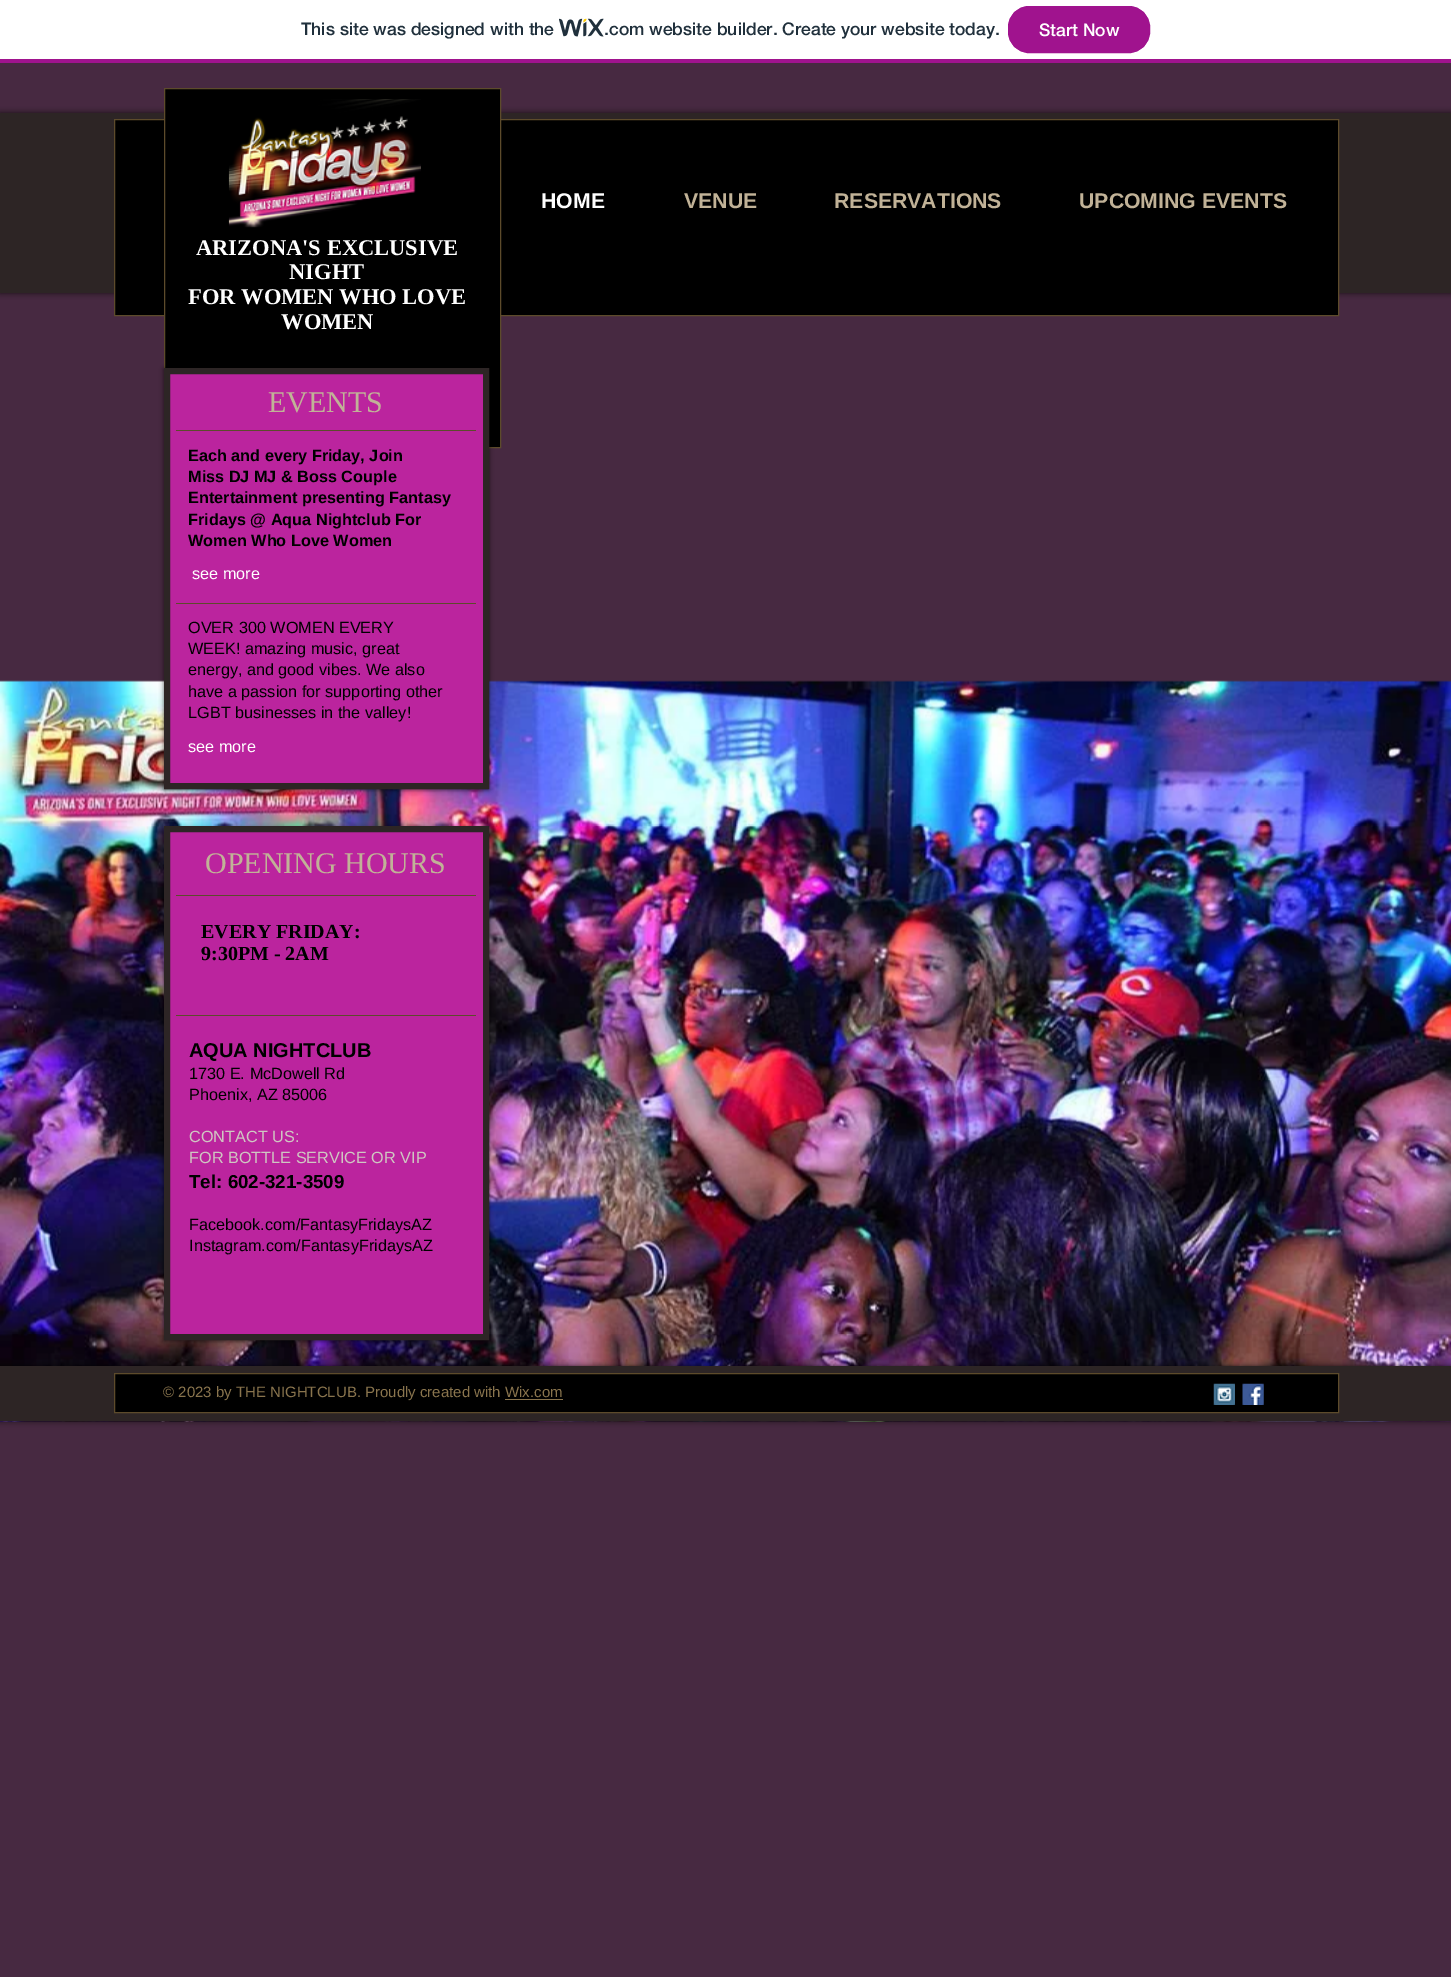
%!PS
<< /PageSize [1451 1977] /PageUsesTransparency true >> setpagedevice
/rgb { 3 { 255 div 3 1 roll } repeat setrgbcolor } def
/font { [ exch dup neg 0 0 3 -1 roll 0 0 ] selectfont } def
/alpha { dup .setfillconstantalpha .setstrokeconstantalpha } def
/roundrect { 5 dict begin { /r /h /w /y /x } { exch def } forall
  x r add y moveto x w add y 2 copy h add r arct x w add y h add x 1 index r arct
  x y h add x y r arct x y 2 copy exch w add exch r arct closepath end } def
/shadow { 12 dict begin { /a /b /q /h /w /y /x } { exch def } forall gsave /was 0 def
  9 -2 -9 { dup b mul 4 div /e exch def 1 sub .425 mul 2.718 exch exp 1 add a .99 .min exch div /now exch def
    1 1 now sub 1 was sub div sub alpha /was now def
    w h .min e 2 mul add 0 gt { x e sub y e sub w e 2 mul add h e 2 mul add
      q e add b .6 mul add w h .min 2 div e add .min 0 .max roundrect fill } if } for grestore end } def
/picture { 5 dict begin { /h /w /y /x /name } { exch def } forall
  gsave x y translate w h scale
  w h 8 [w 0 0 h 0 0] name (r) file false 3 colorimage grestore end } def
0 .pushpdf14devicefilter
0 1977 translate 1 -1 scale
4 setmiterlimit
255 255 255 rgb
0 0 1451 1977 rectfill
160 19 142 rgb
0 59 1451 4 rectfill
(img/1.rgb) 559 18 45 19 picture
1008.5 6.5 141 46 20.5 roundrect gsave fill grestore
stroke
71 41 65 rgb
0 63 1451 1914 rectfill
(img/2.rgb) 0 680 1451 742 picture
0 0 0 rgb
0 113 1451 180 0 3 0.7 shadow
45 37 37 rgb
0 113 1451 180 rectfill
0 0 0 rgb
114.5 119.5 moveto 1338.5 119.5 lineto 1338.5 315.5 lineto 114.5 315.5 lineto closepath gsave fill grestore
93 75 43 rgb
stroke
0 0 0 rgb
164.5 88.5 moveto 500.5 88.5 lineto 500.5 447.5 lineto 164.5 447.5 lineto closepath gsave fill grestore
93 75 43 rgb
stroke
(img/3.rgb) 228 99 193 129 picture
0 0 0 rgb
164 369 325 421 0 2.5 0.6 shadow
187 36 158 rgb
167 371 moveto 486 371 lineto 486 786 lineto 167 786 lineto closepath gsave fill grestore
45 37 37 rgb
6 setlinewidth
stroke
93 75 43 rgb
176 430 300 1 rectfill
176 603 300 1 rectfill
0 0 0 rgb
164 828 325 513 0 2.5 0.6 shadow
187 36 158 rgb
167 829 moveto 486 829 lineto 486 1337 lineto 167 1337 lineto closepath gsave fill grestore
45 37 37 rgb
stroke
93 75 43 rgb
176 895 300 1 rectfill
176 1015 300 1 rectfill
0 0 0 rgb
0 1366 1451 55 0 3 0.7 shadow
45 37 37 rgb
0 1366 1451 55 rectfill
0 0 0 rgb
114.5 1373.5 moveto 1338.5 1373.5 lineto 1338.5 1412.5 lineto 114.5 1412.5 lineto closepath gsave fill grestore
93 75 43 rgb
1 setlinewidth
stroke
137 116 77 rgb
505 1399 58 1 rectfill
(img/4.rgb) 1213 1383 22 22 picture
(img/5.rgb) 1242 1383 22 22 picture
/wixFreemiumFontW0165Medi-Medium 17.5 font
32 48 60 rgb
301 35 moveto (This site was designed with the) show
604 35 moveto (.com website builder. Create your website today.) show
255 255 255 rgb
1039 36 moveto (Start Now) show
/LiberationSans-Bold 21.25 font
541 208 moveto (HOME) show
193 178 151 rgb
[
  [(VENUE) 684 208]
  [(RESERVATIONS) 834 208]
  [(UPCOMING EVENTS) 1079 208]
] { aload pop moveto show } forall
/LiberationSerif-Bold 22.5 font
255 255 255 rgb
[
  [(ARIZONA'S EXCLUSIVE) 196 255]
  [(NIGHT) 289 279]
  [(FOR WOMEN WHO LOVE) 188 304]
  [(WOMEN) 281 329]
] { aload pop moveto show } forall
/LiberationSerif-Regular 30 font
193 178 151 rgb
268 412 moveto (EVENTS) show
/LiberationSans-Bold 16.25 font
0 0 0 rgb
[
  [(Each and every Friday, Join) 188 461]
  [(Miss DJ MJ & Boss Couple) 188 482]
  [(Entertainment presenting Fantasy) 188 503]
  [(Fridays @ Aqua Nightclub For) 188 525]
  [(Women Who Love Women) 188 546]
] { aload pop moveto show } forall
/LiberationSans-Regular 16.25 font
255 255 255 rgb
192 579 moveto (see more) show
0 0 0 rgb
[
  [(OVER 300 WOMEN EVERY) 188 633]
  [(WEEK! amazing music, great) 188 654]
  [(energy, and good vibes. We also) 188 675]
  [(have a passion for supporting other) 188 697]
  [(LGBT businesses in the valley!) 188 718]
] { aload pop moveto show } forall
255 255 255 rgb
188 752 moveto (see more) show
/LiberationSerif-Regular 30 font
193 178 151 rgb
205 873 moveto (OPENING HOURS) show
/LiberationSerif-Bold 20 font
0 0 0 rgb
201 938 moveto (EVERY FRIDAY:) show
201 960 moveto (9:30PM - 2AM) show
/LiberationSans-Bold 20 font
189 1057 moveto (AQUA NIGHTCLUB) show
/LiberationSans-Regular 16.25 font
189 1079 moveto (1730 E. McDowell Rd) show
189 1100 moveto (Phoenix, AZ 85006) show
207 199 194 rgb
189 1142 moveto (CONTACT US:) show
189 1163 moveto (FOR BOTTLE SERVICE OR VIP) show
/LiberationSans-Bold 18.75 font
0 0 0 rgb
189 1188 moveto (Tel: 602-321-3509) show
/LiberationSans-Regular 16.25 font
189 1230 moveto (Facebook.com/FantasyFridaysAZ) show
189 1251 moveto (Instagram.com/FantasyFridaysAZ) show
/LiberationSans-Regular 15 font
137 116 77 rgb
163 1397 moveto (© 2023 by THE NIGHTCLUB. Proudly created with Wix.com) show
.poppdf14devicefilter showpage
